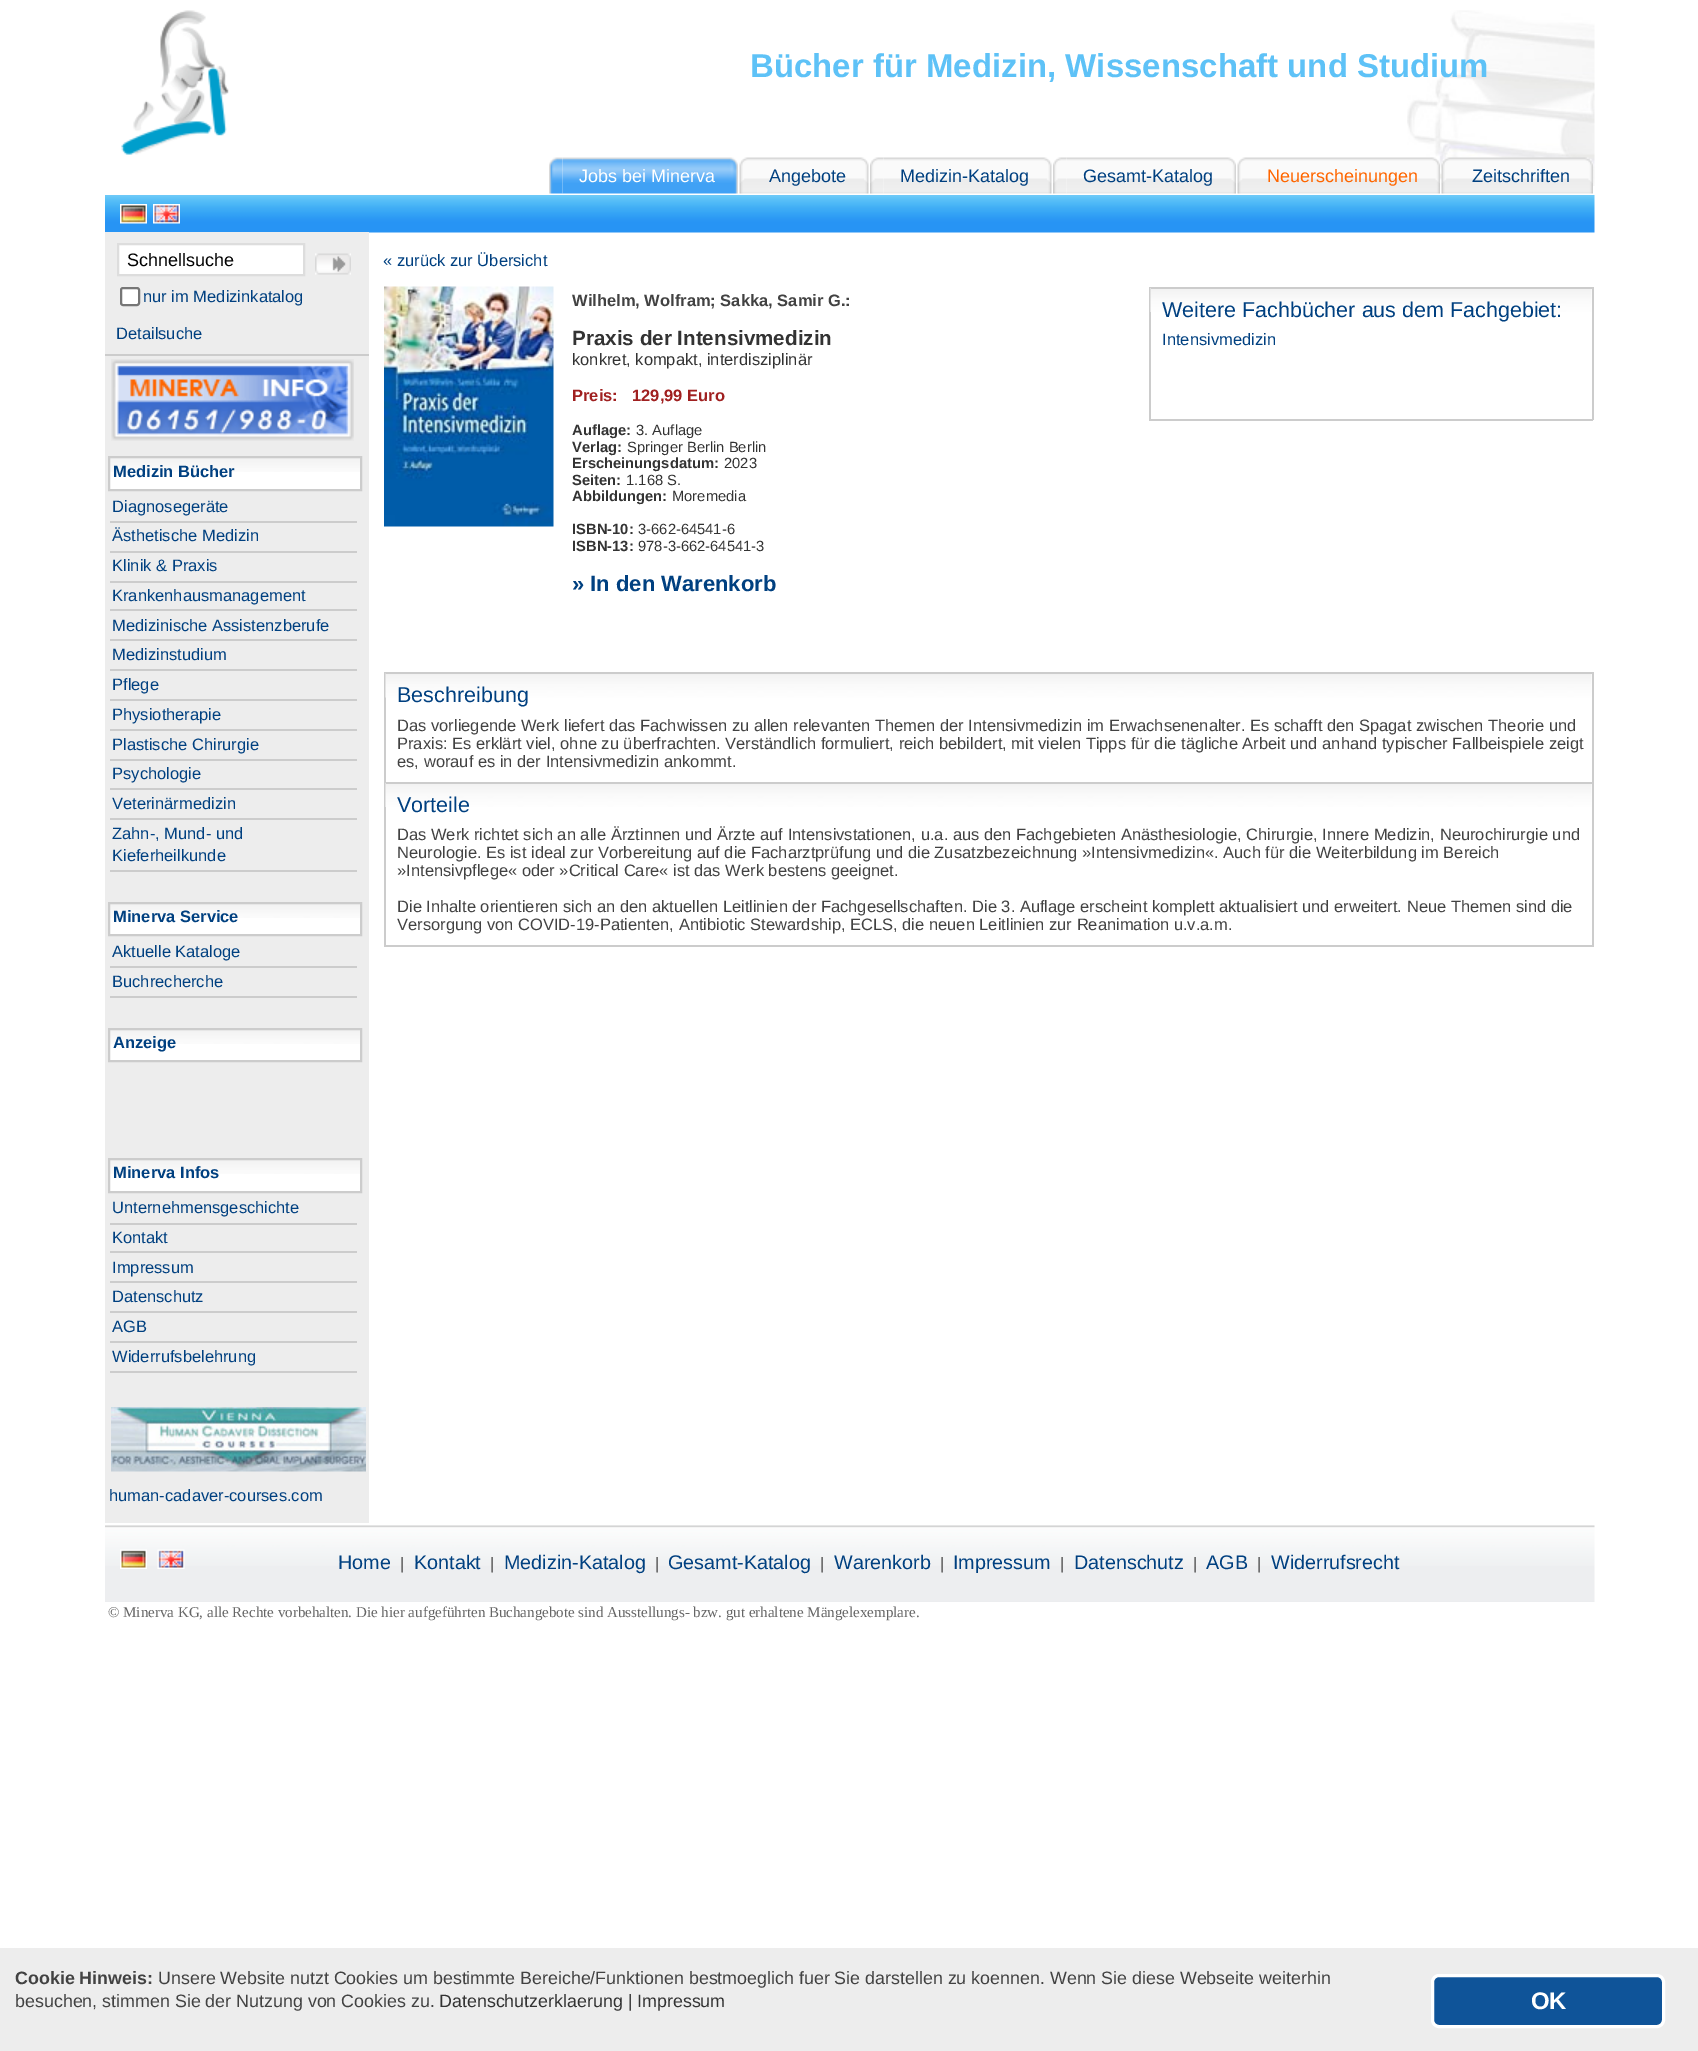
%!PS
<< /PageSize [1698 2051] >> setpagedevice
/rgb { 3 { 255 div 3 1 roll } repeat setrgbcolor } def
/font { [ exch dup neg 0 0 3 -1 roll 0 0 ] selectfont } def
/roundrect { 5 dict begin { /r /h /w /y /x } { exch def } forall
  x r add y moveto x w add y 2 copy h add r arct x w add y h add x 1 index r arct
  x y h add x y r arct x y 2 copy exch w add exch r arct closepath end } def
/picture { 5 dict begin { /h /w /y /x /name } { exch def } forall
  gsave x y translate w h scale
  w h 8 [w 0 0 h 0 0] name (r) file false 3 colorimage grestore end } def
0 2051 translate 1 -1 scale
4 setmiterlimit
255 255 255 rgb
0 0 1698 2051 rectfill
(img/1.rgb) 1407 10 188 176 picture
(img/2.rgb) 121 10 108 145 picture
(img/3.rgb) 562 157 176 37 picture
(img/4.rgb) 549 157 14 37 picture
(img/5.rgb) 753 157 116 37 picture
(img/6.rgb) 739 157 14 37 picture
(img/7.rgb) 883 157 169 37 picture
(img/8.rgb) 870 157 14 37 picture
(img/9.rgb) 1066 157 170 37 picture
(img/10.rgb) 1053 157 14 37 picture
(img/11.rgb) 1251 157 189 37 picture
(img/12.rgb) 1237 157 14 37 picture
(img/13.rgb) 1455 157 138 37 picture
(img/14.rgb) 1441 157 14 37 picture
(img/15.rgb) 105 195 1490 38 picture
(img/16.rgb) 120 204 27 20 picture
(img/17.rgb) 153 204 27 20 picture
237 237 237 rgb
105 232 264 1291 rectfill
204 204 204 rgb
105 354 264 2 rectfill
255 255 255 rgb
118 244 moveto 304 244 lineto 304 275 lineto 118 275 lineto closepath gsave fill grestore
221 221 221 rgb
2 setlinewidth
stroke
(img/18.rgb) 315 253 36 22 picture
255 255 255 rgb
121 288 18 17 2 roundrect gsave fill grestore
118 118 118 rgb
stroke
(img/19.rgb) 111 359 243 82 picture
255 255 255 rgb
110 472 250 17 rectfill
(img/20.rgb) 110 458 250 14 picture
204 204 204 rgb
109 457 252 33 rectstroke
[
  [110 521 247 2 204 204 204]
  [110 551 247 2 204 204 204]
  [110 581 247 2 204 204 204]
  [110 609 247 2 204 204 204]
  [110 639 247 2 204 204 204]
  [110 669 247 2 204 204 204]
  [110 699 247 2 204 204 204]
  [110 729 247 2 204 204 204]
  [110 759 247 2 204 204 204]
  [110 788 247 2 204 204 204]
  [110 818 247 2 204 204 204]
  [110 870 247 2 204 204 204]
  [110 918 250 16 255 255 255]
] { aload pop rgb rectfill } forall
(img/21.rgb) 110 904 250 14 picture
204 204 204 rgb
109 903 252 32 rectstroke
[
  [110 966 247 2 204 204 204]
  [110 996 247 2 204 204 204]
  [110 1044 250 16 255 255 255]
] { aload pop rgb rectfill } forall
(img/21.rgb) 110 1030 250 14 picture
204 204 204 rgb
109 1029 252 32 rectstroke
255 255 255 rgb
110 1174 250 17 rectfill
(img/20.rgb) 110 1160 250 14 picture
204 204 204 rgb
109 1159 252 33 rectstroke
[
  [110 1223 247 2 204 204 204]
  [110 1251 247 2 204 204 204]
  [110 1281 247 2 204 204 204]
  [110 1311 247 2 204 204 204]
  [110 1341 247 2 204 204 204]
  [110 1371 247 2 204 204 204]
] { aload pop rgb rectfill } forall
(img/22.rgb) 111 1407 255 65 picture
(img/23.rgb) 384 286 170 241 picture
[
  [1592 287 2 133 204 204 204]
  [1149 419 444 2 204 204 204]
  [1149 287 2 133 204 204 204]
] { aload pop rgb rectfill } forall
(img/24.rgb) 1150 288 442 24 picture
[
  [1151 287 441 2 204 204 204]
  [1592 672 2 275 204 204 204]
  [384 945 1209 2 204 204 204]
  [384 672 2 275 204 204 204]
] { aload pop rgb rectfill } forall
(img/25.rgb) 385 673 1207 25 picture
386 672 1206 2 rectfill
(img/26.rgb) 385 783 1207 24 picture
386 782 1206 2 rectfill
(img/27.rgb) 105 1525 1490 77 picture
(img/28.rgb) 120 1549 27 20 picture
(img/29.rgb) 157 1549 28 20 picture
237 237 237 rgb
0 1948 1698 103 rectfill
15 84 153 rgb
1432.5 1975.5 231 51 6.5 roundrect gsave fill grestore
255 255 255 rgb
3 setlinewidth
stroke
/LiberationSans-Bold 33 font
94 194 247 rgb
750 77 moveto (Bücher für Medizin, Wissenschaft und Studium) show
/LiberationSans-Regular 18 font
255 255 255 rgb
579 182 moveto (Jobs bei Minerva) show
0 64 128 rgb
[
  [(Angebote) 769 182]
  [(Medizin-Katalog) 900 182]
  [(Gesamt-Katalog) 1083 182]
] { aload pop moveto show } forall
255 102 0 rgb
1267 182 moveto (Neuerscheinungen) show
0 64 128 rgb
1472 182 moveto (Zeitschriften) show
3 3 3 rgb
127 266 moveto (Schnellsuche) show
/LiberationSans-Regular 16.5 font
0 64 128 rgb
143 302 moveto (nur im Medizinkatalog) show
116 339 moveto (Detailsuche) show
/LiberationSans-Bold 16.5 font
113 477 moveto (Medizin Bücher) show
/LiberationSans-Regular 16.5 font
[
  [(Diagnosegeräte) 112 512]
  [(Ästhetische Medizin) 112 541]
  [(Klinik & Praxis) 112 571]
  [(Krankenhausmanagement) 112 601]
  [(Medizinische Assistenzberufe) 112 631]
  [(Medizinstudium) 112 660]
  [(Pflege) 112 690]
  [(Physiotherapie) 112 720]
  [(Plastische Chirurgie) 112 750]
  [(Psychologie) 112 779]
  [(Veterinärmedizin) 112 809]
  [(Zahn-, Mund- und) 112 839]
  [(Kieferheilkunde) 112 861]
] { aload pop moveto show } forall
/LiberationSans-Bold 16.5 font
113 922 moveto (Minerva Service) show
/LiberationSans-Regular 16.5 font
112 957 moveto (Aktuelle Kataloge) show
112 987 moveto (Buchrecherche) show
/LiberationSans-Bold 16.5 font
113 1048 moveto (Anzeige) show
113 1178 moveto (Minerva Infos) show
/LiberationSans-Regular 16.5 font
[
  [(Unternehmensgeschichte) 112 1213]
  [(Kontakt) 112 1243]
  [(Impressum) 112 1273]
  [(Datenschutz) 112 1302]
  [(AGB) 112 1332]
  [(Widerrufsbelehrung) 112 1362]
  [(human-cadaver-courses.com) 109 1501]
  [(« zurück zur Übersicht) 383 266]
] { aload pop moveto show } forall
/LiberationSans-Bold 16.5 font
66 66 66 rgb
572 306 moveto (Wilhelm, Wolfram; Sakka, Samir G.:) show
/LiberationSans-Bold 20.6 font
51 51 51 rgb
572 345 moveto (Praxis der Intensivmedizin) show
/LiberationSans-Regular 16.5 font
572 365 moveto (konkret, kompakt, interdisziplinär) show
/LiberationSans-Bold 16.5 font
160 32 32 rgb
572 401 moveto (Preis:) show
632 401 moveto (129,99 Euro) show
/LiberationSans-Bold 14.75 font
51 51 51 rgb
572 435 moveto (Auflage:) show
/LiberationSans-Regular 14.75 font
636 435 moveto (3. Auflage) show
/LiberationSans-Bold 14.75 font
572 452 moveto (Verlag:) show
/LiberationSans-Regular 14.75 font
627 452 moveto (Springer Berlin Berlin) show
/LiberationSans-Bold 14.75 font
572 468 moveto (Erscheinungsdatum:) show
/LiberationSans-Regular 14.75 font
724 468 moveto (2023) show
/LiberationSans-Bold 14.75 font
572 485 moveto (Seiten:) show
/LiberationSans-Regular 14.75 font
626 485 moveto (1.168 S.) show
/LiberationSans-Bold 14.75 font
572 501 moveto (Abbildungen:) show
/LiberationSans-Regular 14.75 font
672 501 moveto (Moremedia) show
/LiberationSans-Bold 14.75 font
572 534 moveto (ISBN-10:) show
/LiberationSans-Regular 14.75 font
638 534 moveto (3-662-64541-6) show
/LiberationSans-Bold 14.75 font
572 551 moveto (ISBN-13:) show
/LiberationSans-Regular 14.75 font
638 551 moveto (978-3-662-64541-3) show
/LiberationSans-Bold 22 font
0 64 128 rgb
572 591 moveto (» In den Warenkorb) show
/LiberationSans-Regular 21.5 font
1162 317 moveto (Weitere Fachbücher aus dem Fachgebiet:) show
/LiberationSans-Regular 16.5 font
1162 345 moveto (Intensivmedizin) show
/LiberationSans-Regular 21.5 font
397 702 moveto (Beschreibung) show
/LiberationSans-Regular 16.5 font
66 66 66 rgb
[
  [(Das vorliegende Werk liefert das Fachwissen zu allen relevanten Themen der Intensivmedizin im Erwachsenenalter. Es schafft den Spagat zwischen Theorie und) 397 731]
  [(Praxis: Es erklärt viel, ohne zu überfrachten. Verständlich formuliert, reich bebildert, mit vielen Tipps für die tägliche Arbeit und anhand typischer Fallbeispiele zeigt) 397 749]
  [(es, worauf es in der Intensivmedizin ankommt.) 397 767]
] { aload pop moveto show } forall
/LiberationSans-Regular 21.5 font
0 64 128 rgb
397 812 moveto (Vorteile) show
/LiberationSans-Regular 16.5 font
66 66 66 rgb
[
  [(Das Werk richtet sich an alle Ärztinnen und Ärzte auf Intensivstationen, u.a. aus den Fachgebieten Anästhesiologie, Chirurgie, Innere Medizin, Neurochirurgie und) 397 840]
  [(Neurologie. Es ist ideal zur Vorbereitung auf die Facharztprüfung und die Zusatzbezeichnung »Intensivmedizin«. Auch für die Weiterbildung im Bereich) 397 858]
  [(»Intensivpflege« oder »Critical Care« ist das Werk bestens geeignet.) 397 876]
  [(Die Inhalte orientieren sich an den aktuellen Leitlinien der Fachgesellschaften. Die 3. Auflage erscheint komplett aktualisiert und erweitert. Neue Themen sind die) 397 912]
  [(Versorgung von COVID-19-Patienten, Antibiotic Stewardship, ECLS, die neuen Leitlinien zur Reanimation u.v.a.m.) 397 930]
] { aload pop moveto show } forall
/LiberationSans-Regular 19.75 font
0 64 128 rgb
338 1569 moveto (Home) show
/LiberationSans-Regular 16.5 font
66 66 66 rgb
400 1569 moveto (|) show
/LiberationSans-Regular 19.75 font
0 64 128 rgb
414 1569 moveto (Kontakt) show
/LiberationSans-Regular 16.5 font
66 66 66 rgb
490 1569 moveto (|) show
/LiberationSans-Regular 19.75 font
0 64 128 rgb
504 1569 moveto (Medizin-Katalog) show
/LiberationSans-Regular 16.5 font
66 66 66 rgb
655 1569 moveto (|) show
/LiberationSans-Regular 19.75 font
0 64 128 rgb
668 1569 moveto (Gesamt-Katalog) show
/LiberationSans-Regular 16.5 font
66 66 66 rgb
820 1569 moveto (|) show
/LiberationSans-Regular 19.75 font
0 64 128 rgb
834 1569 moveto (Warenkorb) show
/LiberationSans-Regular 16.5 font
66 66 66 rgb
940 1569 moveto (|) show
/LiberationSans-Regular 19.75 font
0 64 128 rgb
953 1569 moveto (Impressum) show
/LiberationSans-Regular 16.5 font
66 66 66 rgb
1060 1569 moveto (|) show
/LiberationSans-Regular 19.75 font
0 64 128 rgb
1074 1569 moveto (Datenschutz) show
/LiberationSans-Regular 16.5 font
66 66 66 rgb
1193 1569 moveto (|) show
/LiberationSans-Regular 19.75 font
0 64 128 rgb
1206 1569 moveto (AGB) show
/LiberationSans-Regular 16.5 font
66 66 66 rgb
1257 1569 moveto (|) show
/LiberationSans-Regular 19.75 font
0 64 128 rgb
1271 1569 moveto (Widerrufsrecht) show
/LiberationSerif-Regular 15 font
102 102 102 rgb
108 1617 moveto (© Minerva KG, alle Rechte vorbehalten. Die hier aufgeführten Buchangebote sind Ausstellungs- bzw. gut erhaltene Mängelexemplare.) show
/LiberationSans-Bold 17.85 font
66 66 66 rgb
15 1984 moveto (Cookie Hinweis:) show
/LiberationSans-Regular 17.85 font
158 1984 moveto (Unsere Website nutzt Cookies um bestimmte Bereiche/Funktionen bestmoeglich fuer Sie darstellen zu koennen. Wenn Sie diese Webseite weiterhin) show
15 2007 moveto (besuchen, stimmen Sie der Nutzung von Cookies zu.) show
51 51 51 rgb
439 2007 moveto (Datenschutzerklaerung) show
66 66 66 rgb
628 2007 moveto (|) show
51 51 51 rgb
637 2007 moveto (Impressum) show
/LiberationSans-Bold 24 font
255 255 255 rgb
1531 2009 moveto -1 0 (OK) ashow
showpage
